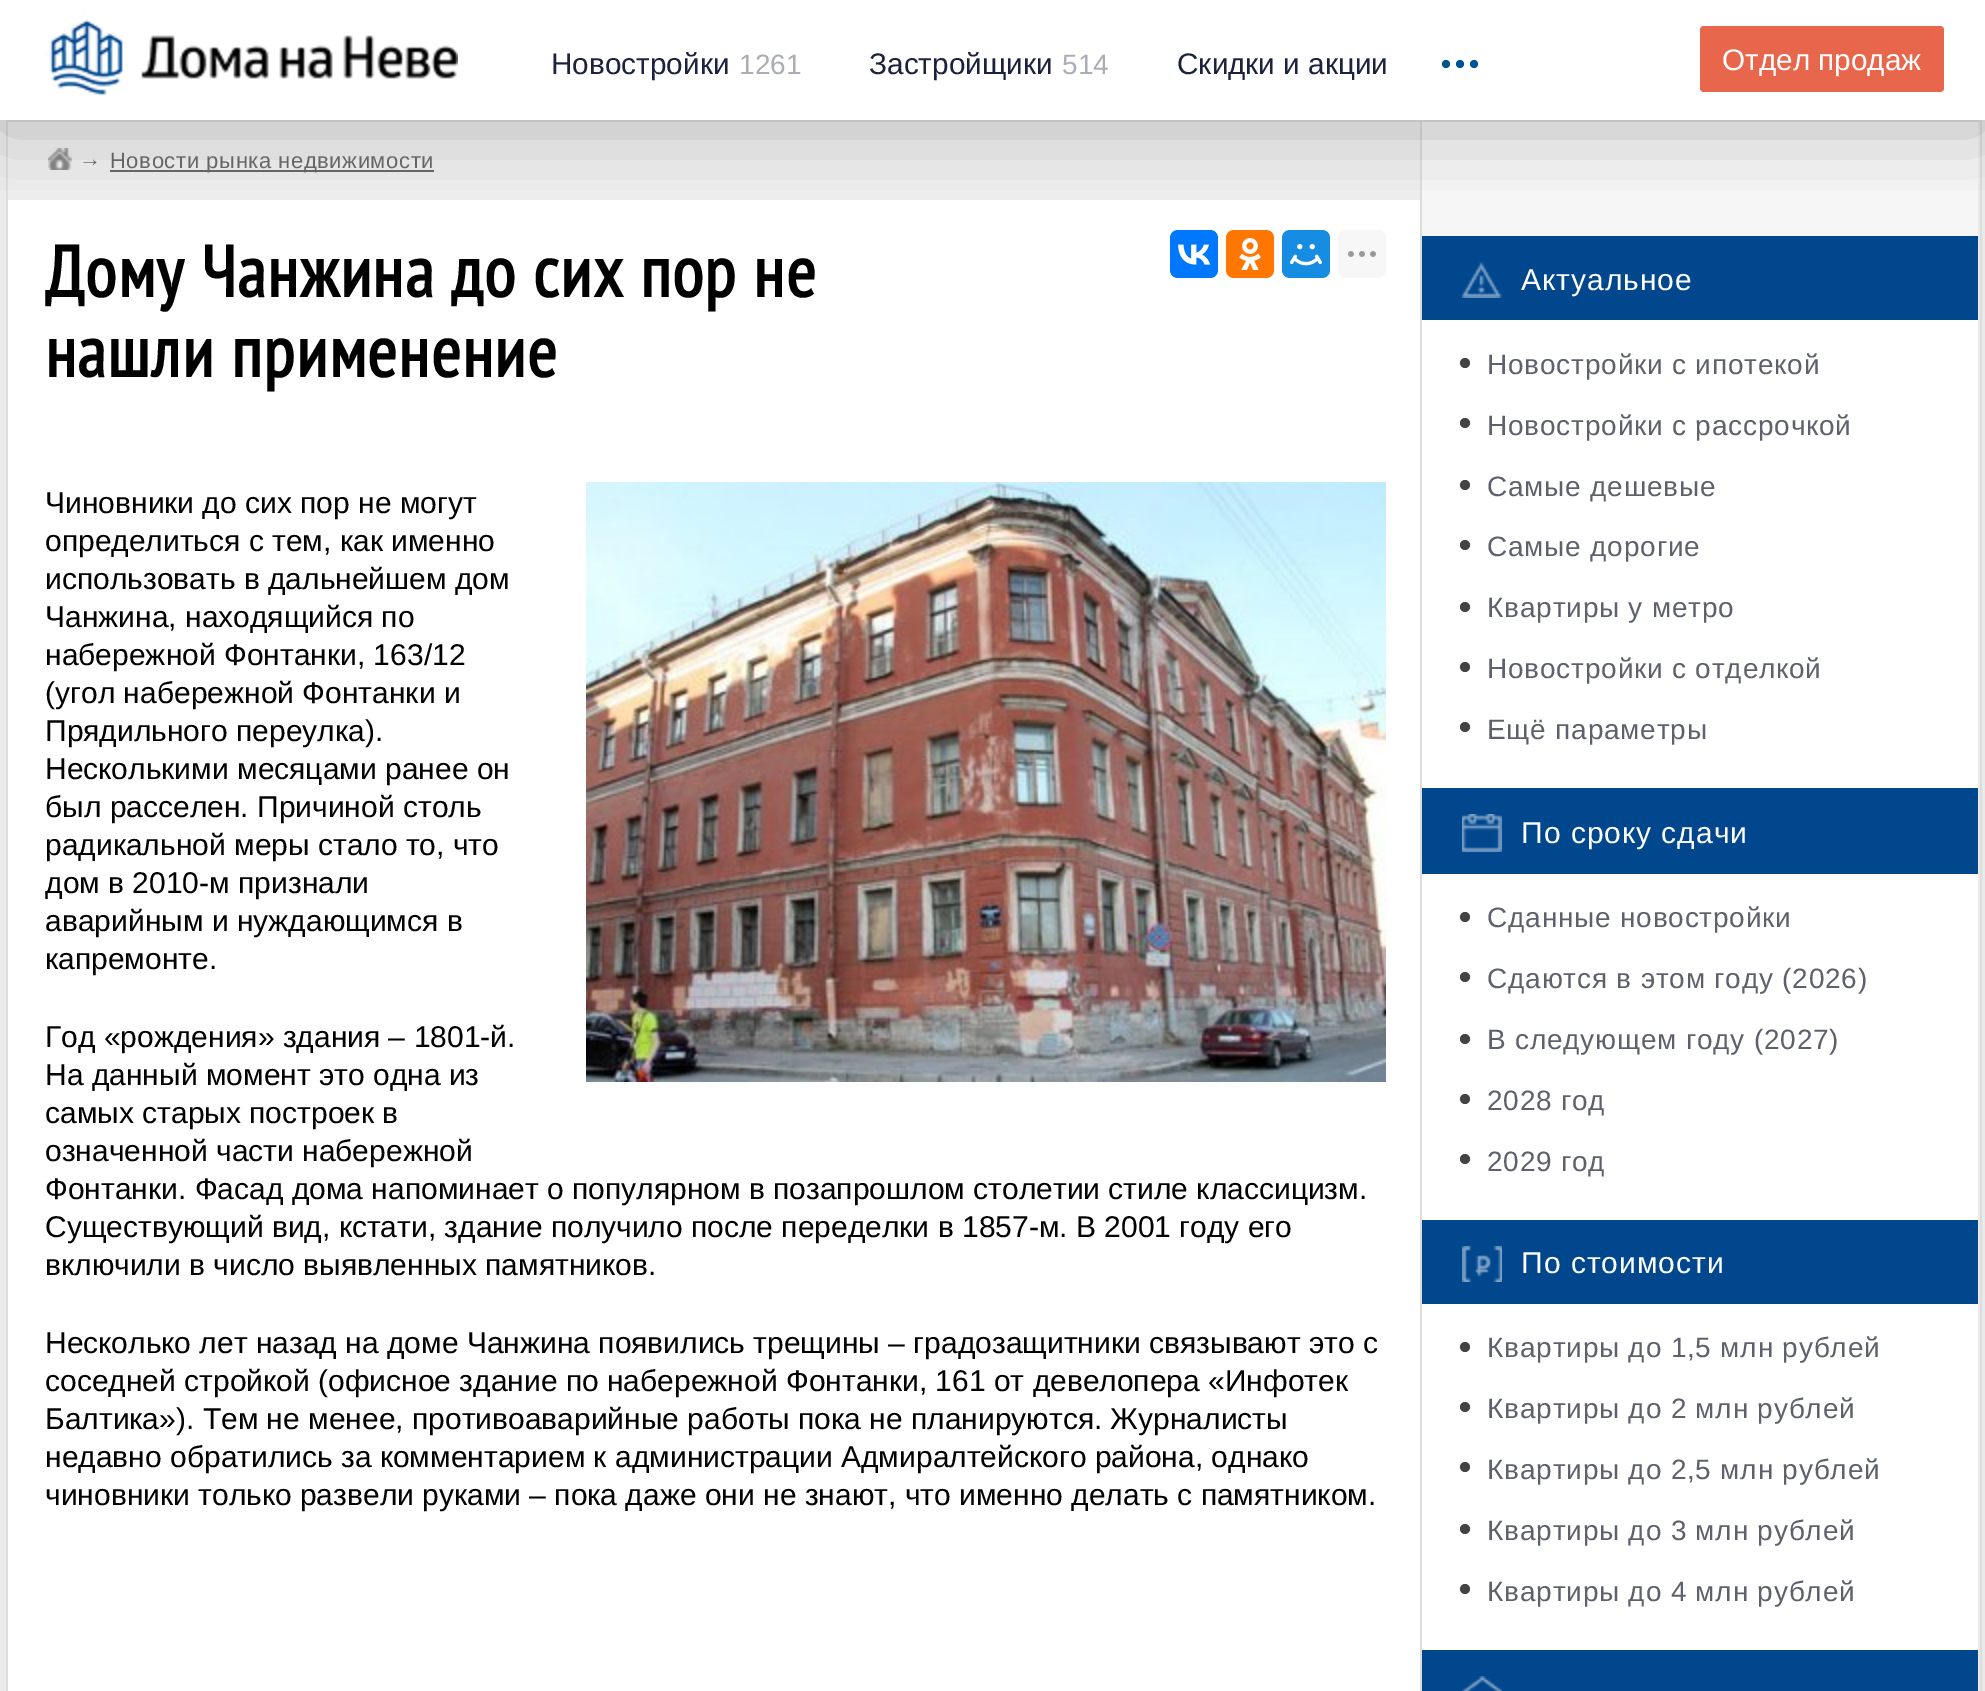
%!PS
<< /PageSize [1985 1691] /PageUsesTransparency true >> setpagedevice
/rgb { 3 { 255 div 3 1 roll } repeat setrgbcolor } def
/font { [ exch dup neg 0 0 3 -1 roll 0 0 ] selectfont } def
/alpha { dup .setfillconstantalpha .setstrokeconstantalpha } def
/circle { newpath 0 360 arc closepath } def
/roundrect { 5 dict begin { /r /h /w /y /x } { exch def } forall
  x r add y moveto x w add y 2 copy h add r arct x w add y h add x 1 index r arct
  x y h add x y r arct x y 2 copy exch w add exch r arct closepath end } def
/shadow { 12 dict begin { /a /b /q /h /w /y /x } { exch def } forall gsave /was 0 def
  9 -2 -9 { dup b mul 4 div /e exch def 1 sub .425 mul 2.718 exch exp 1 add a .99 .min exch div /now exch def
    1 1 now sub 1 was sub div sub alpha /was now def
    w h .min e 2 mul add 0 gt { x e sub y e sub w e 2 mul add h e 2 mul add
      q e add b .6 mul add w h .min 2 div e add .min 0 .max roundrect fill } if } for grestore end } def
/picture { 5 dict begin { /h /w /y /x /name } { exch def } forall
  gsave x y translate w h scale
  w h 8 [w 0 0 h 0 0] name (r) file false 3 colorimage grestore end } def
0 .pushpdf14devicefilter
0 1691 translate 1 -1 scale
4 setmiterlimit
255 255 255 rgb
0 0 1985 1691 rectfill
234 234 234 rgb
0 120 1985 1571 rectfill
220 220 220 rgb
6 120 1976 2 rectfill
1982 120 moveto 1982 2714 lineto 1980 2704 lineto 1980 122 lineto closepath fill
6 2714 moveto 6 120 lineto 8 122 lineto 8 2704 lineto closepath fill
[
  [8 200 1412 1491 255 255 255]
  [1420 122 2 1569 220 220 220]
  [8 122 1412 78 237 237 237]
] { aload pop rgb rectfill } forall
(img/2.rgb) 48 148 24 22 picture
102 102 102 rgb
110 170 324 2 rectfill
0 119 255 rgb
1170 230 48 48 8 roundrect fill
(img/3.rgb) 1178 244 33 21 picture
255 119 0 rgb
1226 230 48 48 8 roundrect fill
(img/4.rgb) 1239 238 22 32 picture
22 141 226 rgb
1282 230 48 48 8 roundrect fill
(img/5.rgb) 1290 244 32 22 picture
247 247 247 rgb
1338 230 48 48 8 roundrect fill
246 246 246 rgb
1422 122 556 114 rectfill
0 71 142 rgb
1422 236 556 84 rectfill
gsave
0 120 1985 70 rectclip
50 50 50 rgb
0 10 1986 120 0 40 0.3 shadow
grestore
(img/1.rgb) 46 12 412 84 picture
0 82 146 rgb
1446 64 4 circle fill
1460 64 4 circle fill
1474 64 4 circle fill
232 102 75 rgb
1700 26 244 66 4 roundrect fill
(img/6.rgb) 1348 251 28 6 picture
(img/7.rgb) 586 482 800 600 picture
255 255 255 rgb
1422 320 556 1330 rectfill
(img/8.rgb) 1462 262 40 36 picture
67 67 67 rgb
1465 363 5 circle fill
1465 423 5 circle fill
1465 485 5 circle fill
1465 545 5 circle fill
1465 607 5 circle fill
1465 667 5 circle fill
1465 727 5 circle fill
0 71 142 rgb
1422 788 556 86 rectfill
(img/9.rgb) 1462 814 40 38 picture
67 67 67 rgb
1465 917 5 circle fill
1465 977 5 circle fill
1465 1039 5 circle fill
1465 1099 5 circle fill
1465 1159 5 circle fill
0 71 142 rgb
1422 1220 556 84 rectfill
(img/10.rgb) 1462 1246 40 36 picture
67 67 67 rgb
1465 1347 5 circle fill
1465 1407 5 circle fill
1465 1467 5 circle fill
1465 1529 5 circle fill
1465 1589 5 circle fill
0 71 142 rgb
1422 1650 556 41 rectfill
(img/11.rgb) 1462 1676 40 15 picture
/LiberationSans-Regular 29.75 font
28 34 61 rgb
551 74 moveto (Новостройки) show
/LiberationSans-Regular 28 font
171 173 182 rgb
739 74 moveto (1261) show
/LiberationSans-Regular 29.75 font
28 34 61 rgb
869 74 moveto (Застройщики) show
/LiberationSans-Regular 28 font
171 173 182 rgb
1062 74 moveto (514) show
/LiberationSans-Regular 29.75 font
28 34 61 rgb
1177 74 moveto (Скидки и акции) show
255 255 255 rgb
1722 70 moveto (Отдел продаж) show
/LiberationSans-Regular 22 font
102 102 102 rgb
79 166 moveto (→) show
110 168 moveto 0.6 0 (Новости рынка недвижимости) ashow
/PTSansNarrow-Bold 72 font
0 0 0 rgb
45 297 moveto 1.2 0 (Дому Чанжина до сих пор не) ashow
45 377 moveto 1.2 0 (нашли применение) ashow
/LiberationSans-Regular 30 font
[
  [(Чиновники до сих пор не могут) 45 513]
  [(определиться с тем, как именно) 45 551]
  [(использовать в дальнейшем дом) 45 589]
  [(Чанжина, находящийся по) 45 627]
  [(набережной Фонтанки, 163/12) 45 665]
  [(\(угол набережной Фонтанки и) 45 703]
  [(Прядильного переулка\).) 45 741]
  [(Несколькими месяцами ранее он) 45 779]
  [(был расселен. Причиной столь) 45 817]
  [(радикальной меры стало то, что) 45 855]
  [(дом в 2010-м признали) 45 893]
  [(аварийным и нуждающимся в) 45 931]
  [(капремонте.) 45 969]
  [(Год «рождения» здания – 1801-й.) 45 1047]
  [(На данный момент это одна из) 45 1085]
  [(самых старых построек в) 45 1123]
  [(означенной части набережной) 45 1161]
  [(Фонтанки. Фасад дома напоминает о популярном в позапрошлом столетии стиле классицизм.) 45 1199]
  [(Существующий вид, кстати, здание получило после переделки в 1857-м. В 2001 году его) 45 1237]
  [(включили в число выявленных памятников.) 45 1275]
  [(Несколько лет назад на доме Чанжина появились трещины – градозащитники связывают это с) 45 1353]
  [(соседней стройкой \(офисное здание по набережной Фонтанки, 161 от девелопера «Инфотек) 45 1391]
  [(Балтика»\). Тем не менее, противоаварийные работы пока не планируются. Журналисты) 45 1429]
  [(недавно обратились за комментарием к администрации Адмиралтейского района, однако) 45 1467]
  [(чиновники только развели руками – пока даже они не знают, что именно делать с памятником.) 45 1505]
] { aload pop moveto show } forall
255 255 255 rgb
1521 290 moveto 1 0 (Актуальное) ashow
/LiberationSans-Regular 28 font
94 97 108 rgb
1487 374 moveto 0.8 0 (Новостройки с ипотекой) ashow
1487 435 moveto 0.8 0 (Новостройки с рассрочкой) ashow
1487 496 moveto 0.8 0 (Самые дешевые) ashow
1487 556 moveto 0.8 0 (Самые дорогие) ashow
1487 617 moveto 0.8 0 (Квартиры у метро) ashow
1487 678 moveto 0.8 0 (Новостройки с отделкой) ashow
1487 739 moveto 0.8 0 (Ещё параметры) ashow
/LiberationSans-Regular 30 font
255 255 255 rgb
1521 843 moveto 1 0 (По сроку сдачи) ashow
/LiberationSans-Regular 28 font
94 97 108 rgb
1487 927 moveto 0.8 0 (Сданные новостройки) ashow
1487 988 moveto 0.8 0 (Сдаются в этом году \(2026\)) ashow
1487 1049 moveto 0.8 0 (В следующем году \(2027\)) ashow
1487 1110 moveto 0.8 0 (2028 год) ashow
1487 1171 moveto 0.8 0 (2029 год) ashow
/LiberationSans-Regular 30 font
255 255 255 rgb
1521 1273 moveto 1 0 (По стоимости) ashow
/LiberationSans-Regular 28 font
94 97 108 rgb
1487 1357 moveto 0.8 0 (Квартиры до 1,5 млн рублей) ashow
1487 1418 moveto 0.8 0 (Квартиры до 2 млн рублей) ashow
1487 1479 moveto 0.8 0 (Квартиры до 2,5 млн рублей) ashow
1487 1540 moveto 0.8 0 (Квартиры до 3 млн рублей) ashow
1487 1601 moveto 0.8 0 (Квартиры до 4 млн рублей) ashow
.poppdf14devicefilter showpage
